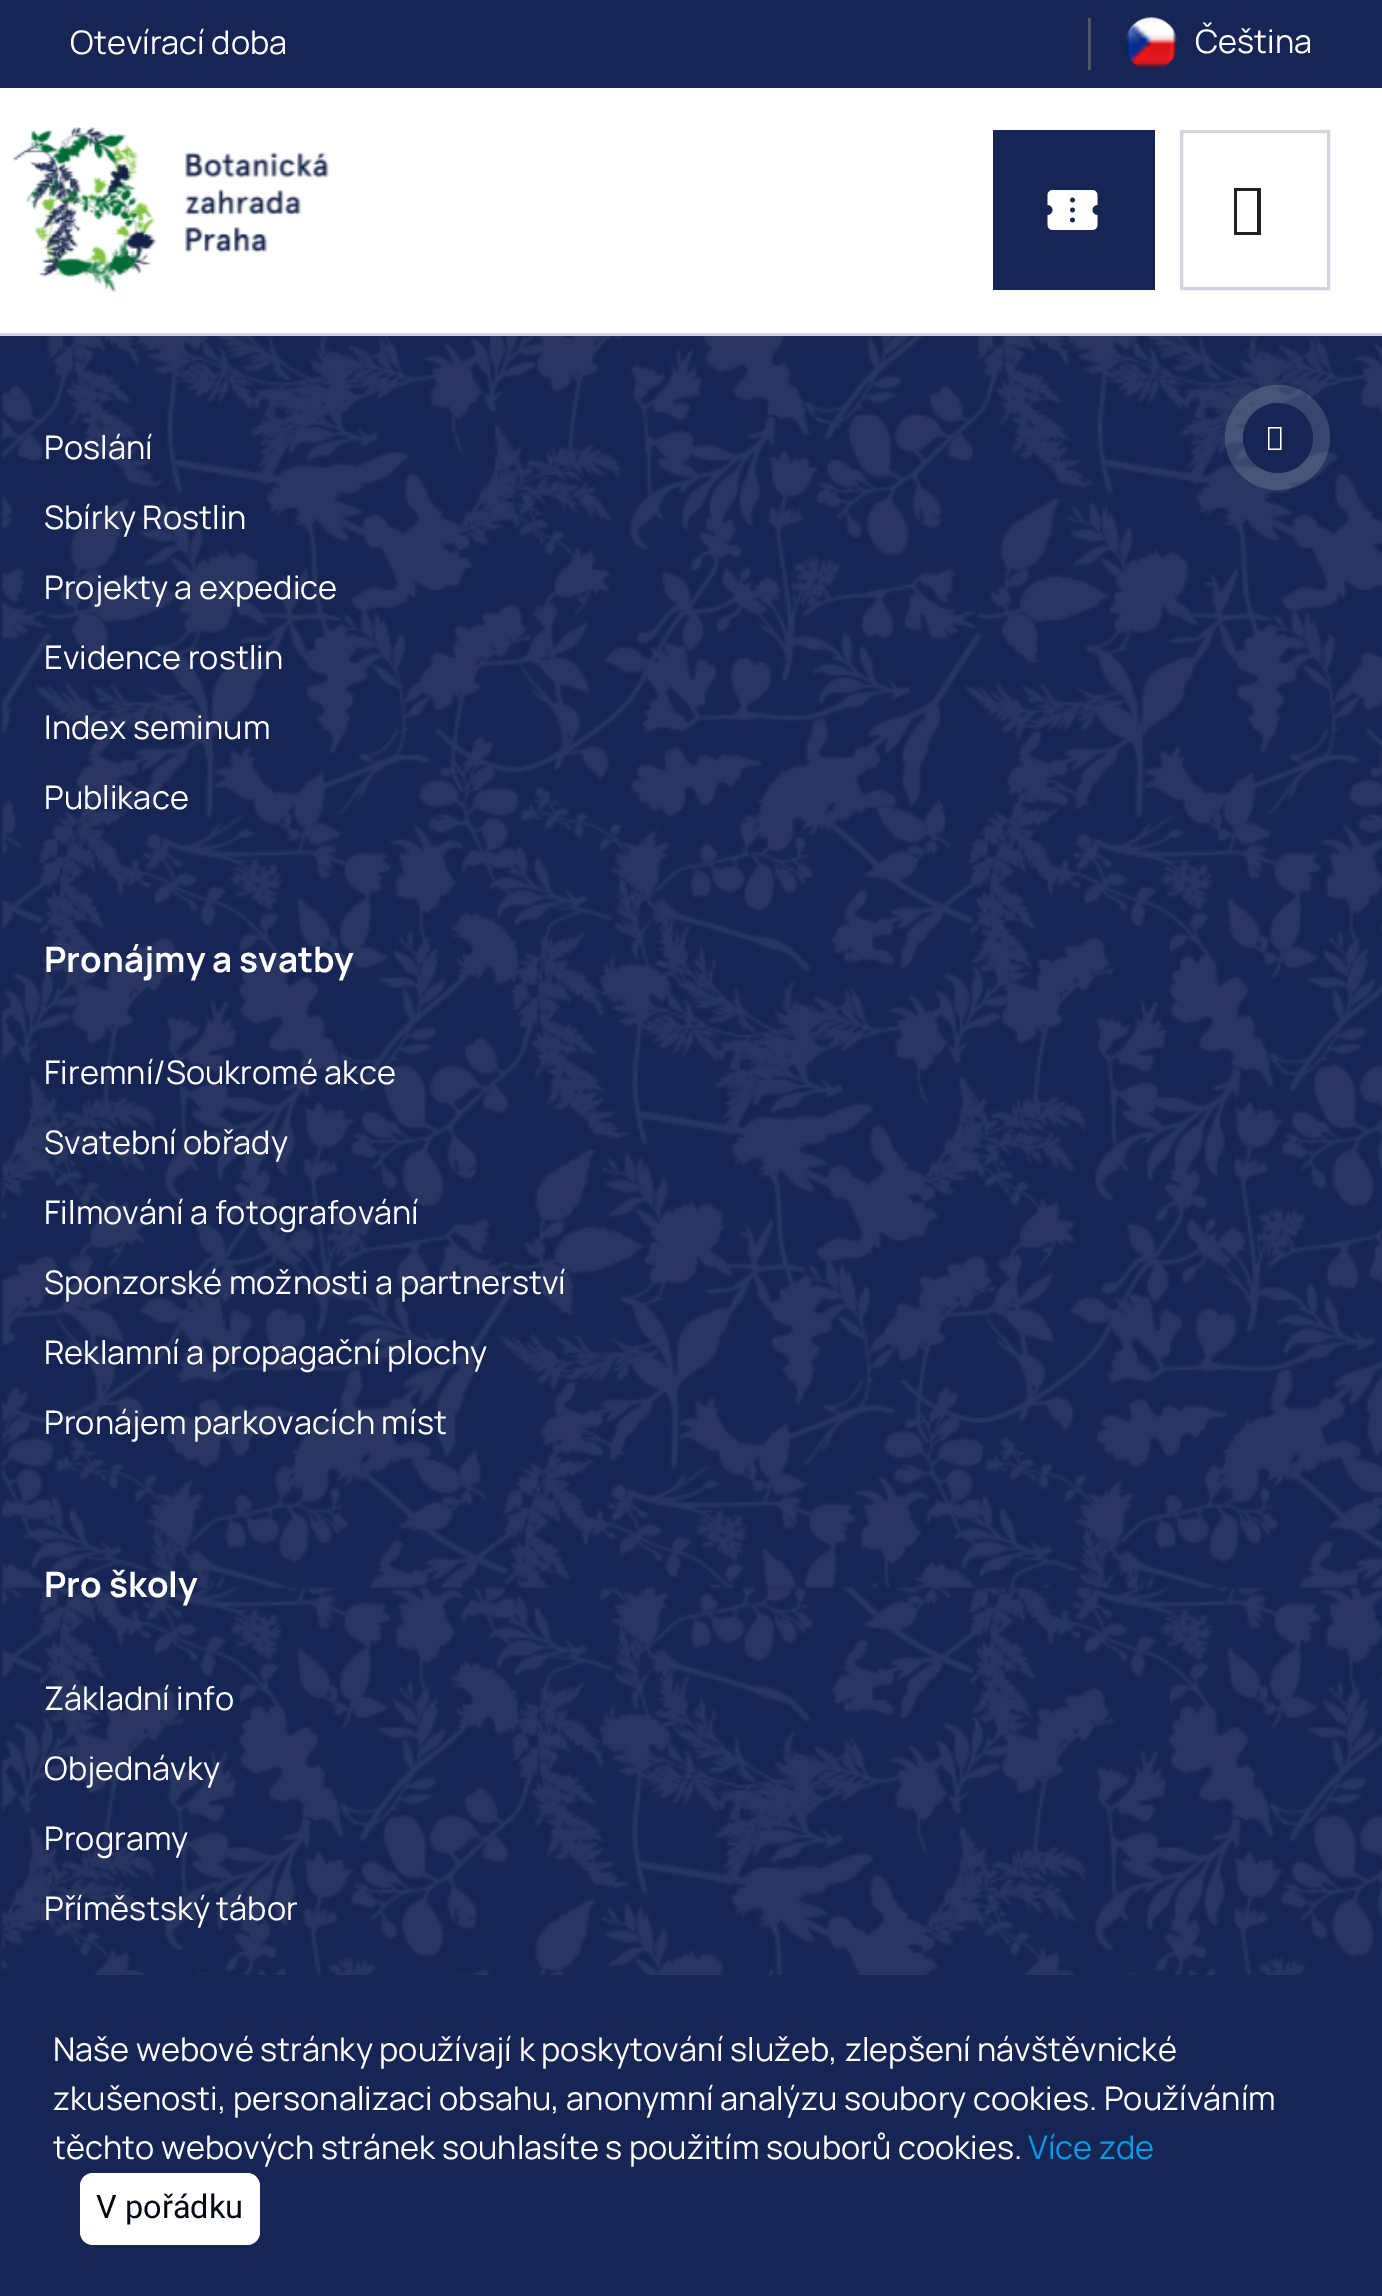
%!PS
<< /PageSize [1382 2296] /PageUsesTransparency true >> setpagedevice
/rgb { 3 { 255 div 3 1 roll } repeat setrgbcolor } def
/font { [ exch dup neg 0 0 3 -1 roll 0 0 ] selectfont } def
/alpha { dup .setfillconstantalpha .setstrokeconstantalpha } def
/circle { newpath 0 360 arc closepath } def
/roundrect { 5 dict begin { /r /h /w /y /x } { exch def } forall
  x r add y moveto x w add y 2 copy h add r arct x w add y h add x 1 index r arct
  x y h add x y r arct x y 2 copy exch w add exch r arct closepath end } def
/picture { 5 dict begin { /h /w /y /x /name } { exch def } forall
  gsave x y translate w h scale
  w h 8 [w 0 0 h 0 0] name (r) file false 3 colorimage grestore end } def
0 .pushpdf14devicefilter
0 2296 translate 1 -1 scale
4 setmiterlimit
23 37 84 rgb
0 0 1382 2296 rectfill
75 85 99 rgb
1088 18 3 52 rectfill
(img/1.rgb) 1125 17 53 53 picture
255 255 255 rgb
0 88 1382 245 rectfill
209 213 219 rgb
0 333 1382 3 rectfill
(img/2.rgb) 12 127 318 166 picture
23 37 84 rgb
993 130 162 160 rectfill
(img/3.rgb) 1047 190 51 40 picture
209 213 219 rgb
3 setlinewidth
1181.5 131.5 147 157 rectstroke
33 33 33 rgb
1234 235 moveto 1234 188 lineto 1261 188 lineto 1261 235 lineto closepath 1237 232 moveto 1257 232 lineto 1257 191 lineto 1237 191 lineto closepath fill
(img/4.rgb) 1 336 1381 1639 picture
0.15 alpha
255 255 255 rgb
1277.5 437.5 52.5 circle fill
1 alpha
23 37 84 rgb
1278 438 35 circle fill
255 255 255 rgb
1268 450 moveto 1268 427 lineto 1281.5 427 lineto 1281.5 450 lineto closepath 1269.5 448.5 moveto 1280 448.5 lineto 1280 428.5 lineto 1269.5 428.5 lineto closepath fill
80 2173 180 72 13 roundrect fill
/Manrope-Regular 32.5 font
[
  [(Otevírací doba) 70 54]
  [(Čeština) 1195 53]
  [(Poslání) 44 459]
  [(Sbírky Rostlin) 44 529]
  [(Projekty a expedice) 44 599]
  [(Evidence rostlin) 44 669]
  [(Index seminum) 44 739]
  [(Publikace) 44 809]
] { aload pop moveto show } forall
/Manrope-Bold 35 font
44 972 moveto (Pronájmy a svatby) show
/Manrope-Regular 32.5 font
[
  [(Firemní/Soukromé akce) 44 1084]
  [(Svatební obřady) 44 1154]
  [(Filmování a fotografování) 44 1224]
  [(Sponzorské možnosti a partnerství) 44 1294]
  [(Reklamní a propagační plochy) 44 1364]
  [(Pronájem parkovacích míst) 44 1434]
] { aload pop moveto show } forall
/Manrope-Bold 35 font
44 1597 moveto (Pro školy) show
/Manrope-Regular 32.5 font
[
  [(Základní info) 44 1710]
  [(Objednávky) 44 1780]
  [(Programy) 44 1850]
  [(Příměstský tábor) 44 1920]
  [(Naše webové stránky používají k poskytování služeb, zlepšení návštěvnické) 53 2061]
  [(zkušenosti, personalizaci obsahu, anonymní analýzu soubory cookies. Používáním) 53 2110]
  [(těchto webových stránek souhlasíte s použitím souborů cookies.) 53 2159]
] { aload pop moveto show } forall
3 155 229 rgb
1028 2159 moveto (Více zde) show
/Roboto-Regular 32.5 font
3 7 18 rgb
96 2218 moveto (V pořádku) show
.poppdf14devicefilter showpage
